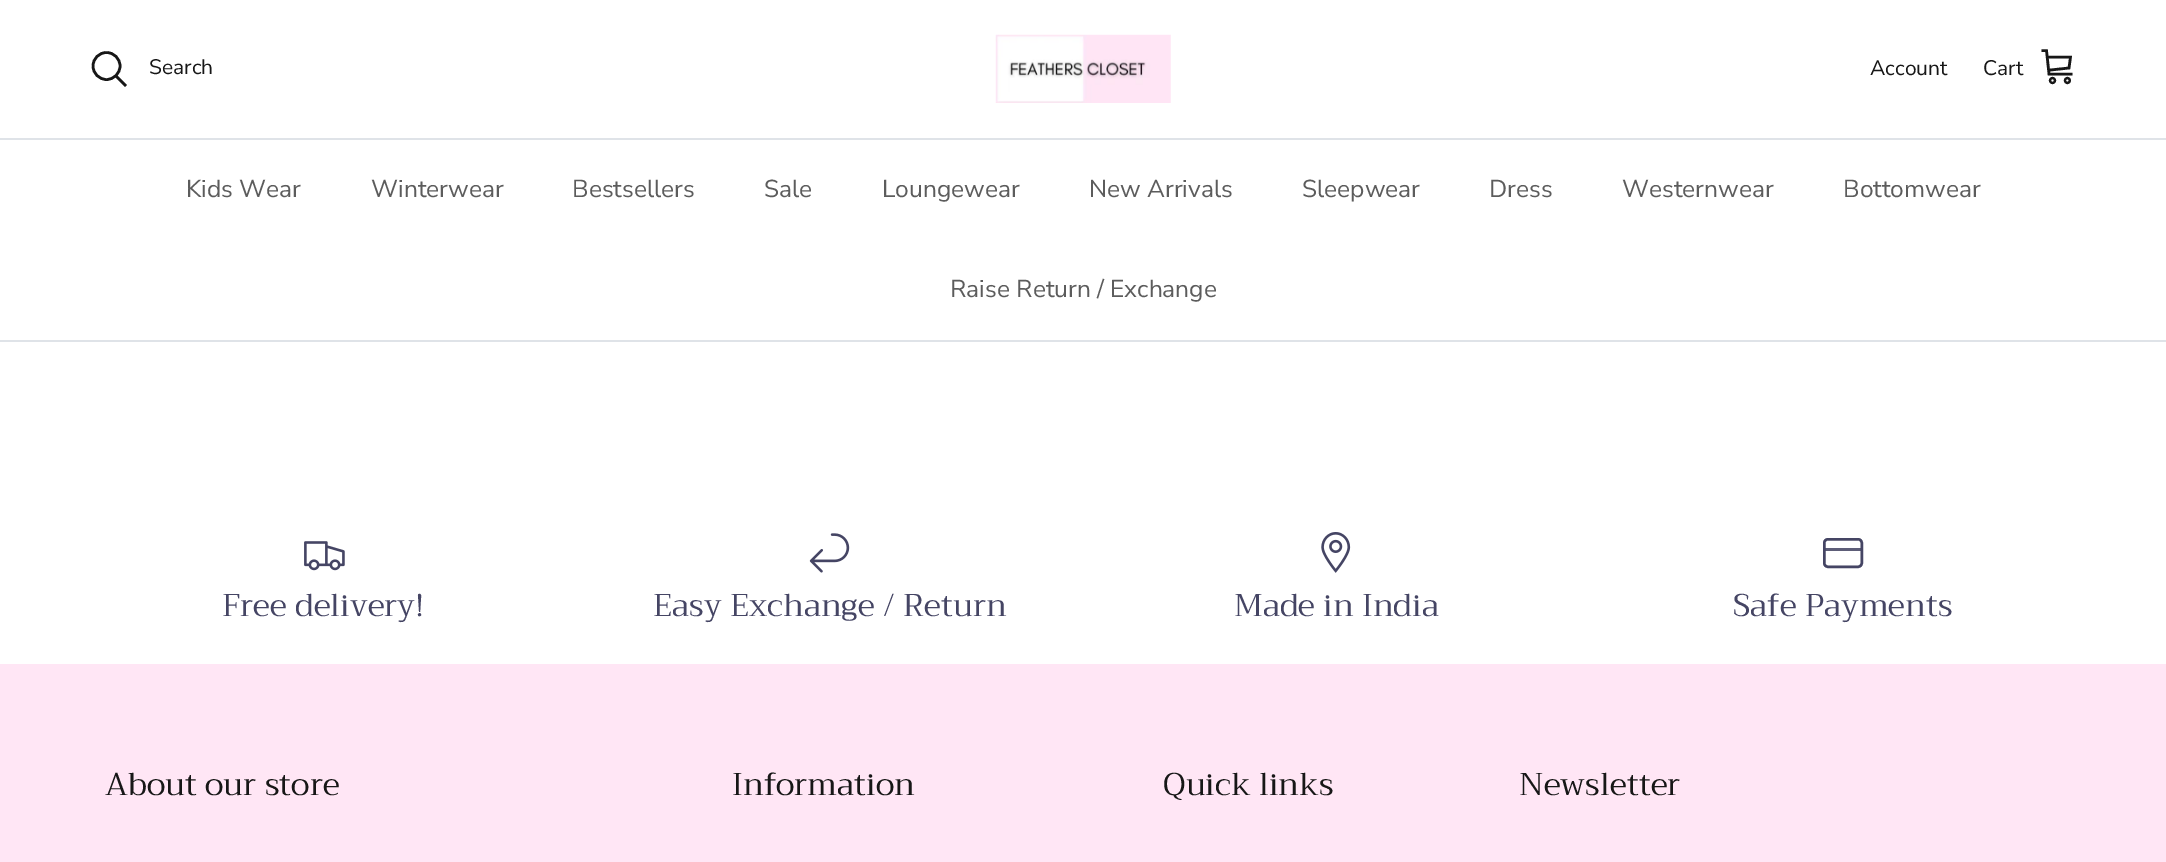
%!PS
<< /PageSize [2166 862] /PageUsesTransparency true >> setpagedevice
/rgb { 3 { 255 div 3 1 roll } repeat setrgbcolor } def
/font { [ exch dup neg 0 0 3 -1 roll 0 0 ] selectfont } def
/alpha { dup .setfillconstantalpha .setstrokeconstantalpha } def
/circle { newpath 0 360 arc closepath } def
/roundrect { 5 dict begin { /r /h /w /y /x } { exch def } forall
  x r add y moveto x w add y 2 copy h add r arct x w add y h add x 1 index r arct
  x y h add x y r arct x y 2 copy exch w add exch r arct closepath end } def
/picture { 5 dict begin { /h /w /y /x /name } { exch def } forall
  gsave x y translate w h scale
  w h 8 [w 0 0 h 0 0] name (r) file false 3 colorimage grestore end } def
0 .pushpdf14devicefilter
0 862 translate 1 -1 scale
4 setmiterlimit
255 255 255 rgb
0 0 2166 862 rectfill
223 227 232 rgb
0 138 2166 2 rectfill
23 23 23 rgb
2.6 setlinewidth
106.5 66 13.5 circle stroke
2 setlinecap
117 77 moveto 125 85 lineto stroke
(img/1.rgb) 995 34 176 69 picture
2043 50.5 moveto 2046.5 50.5 lineto 2049 74 lineto 2071 74 lineto 2048 57 moveto 2070.5 57 lineto 2069 68 lineto 2050.5 70 lineto stroke
2.2 setlinewidth
0 setlinecap
2052.5 80.5 2.4 circle stroke
2067.4 80.5 2.4 circle stroke
223 227 232 rgb
0 340 2166 2 rectfill
(img/2.rgb) 304 541 41 30 picture
(img/3.rgb) 809 533 41 40 picture
(img/4.rgb) 1321 532 30 41 picture
69 69 100 rgb
2.5 setlinewidth
1824.25 539.25 37.5 27.5 3.75 roundrect stroke
0.87 alpha
1824 548 38 3 rectfill
1 alpha
255 230 245 rgb
0 664 2166 198 rectfill
/NunitoSans-Regular 21 font
23 23 23 rgb
[
  [(Search) 149 74]
  [(Account) 1870 75]
  [(Cart) 1983 75]
] { aload pop moveto show } forall
/NunitoSans-Regular 24.5 font
92 92 92 rgb
[
  [(Kids Wear) 186 197]
  [(Winterwear) 371 197]
  [(Bestsellers) 572 197]
  [(Sale) 764 197]
  [(Loungewear) 882 197]
  [(New Arrivals) 1089 197]
  [(Sleepwear) 1302 197]
  [(Dress) 1489 197]
  [(Westernwear) 1622 197]
  [(Bottomwear) 1843 197]
  [(Raise Return / Exchange) 950 297]
] { aload pop moveto show } forall
/Trirong-Regular 31.5 font
69 69 100 rgb
[
  [(Free delivery!) 222 616]
  [(Easy Exchange / Return) 653 616]
  [(Made in India) 1234 616]
  [(Safe Payments) 1733 616]
] { aload pop moveto show } forall
23 23 23 rgb
[
  [(About our store) 105 795]
  [(Information) 732 795]
  [(Quick links) 1163 795]
  [(Newsletter) 1519 795]
] { aload pop moveto show } forall
.poppdf14devicefilter showpage
